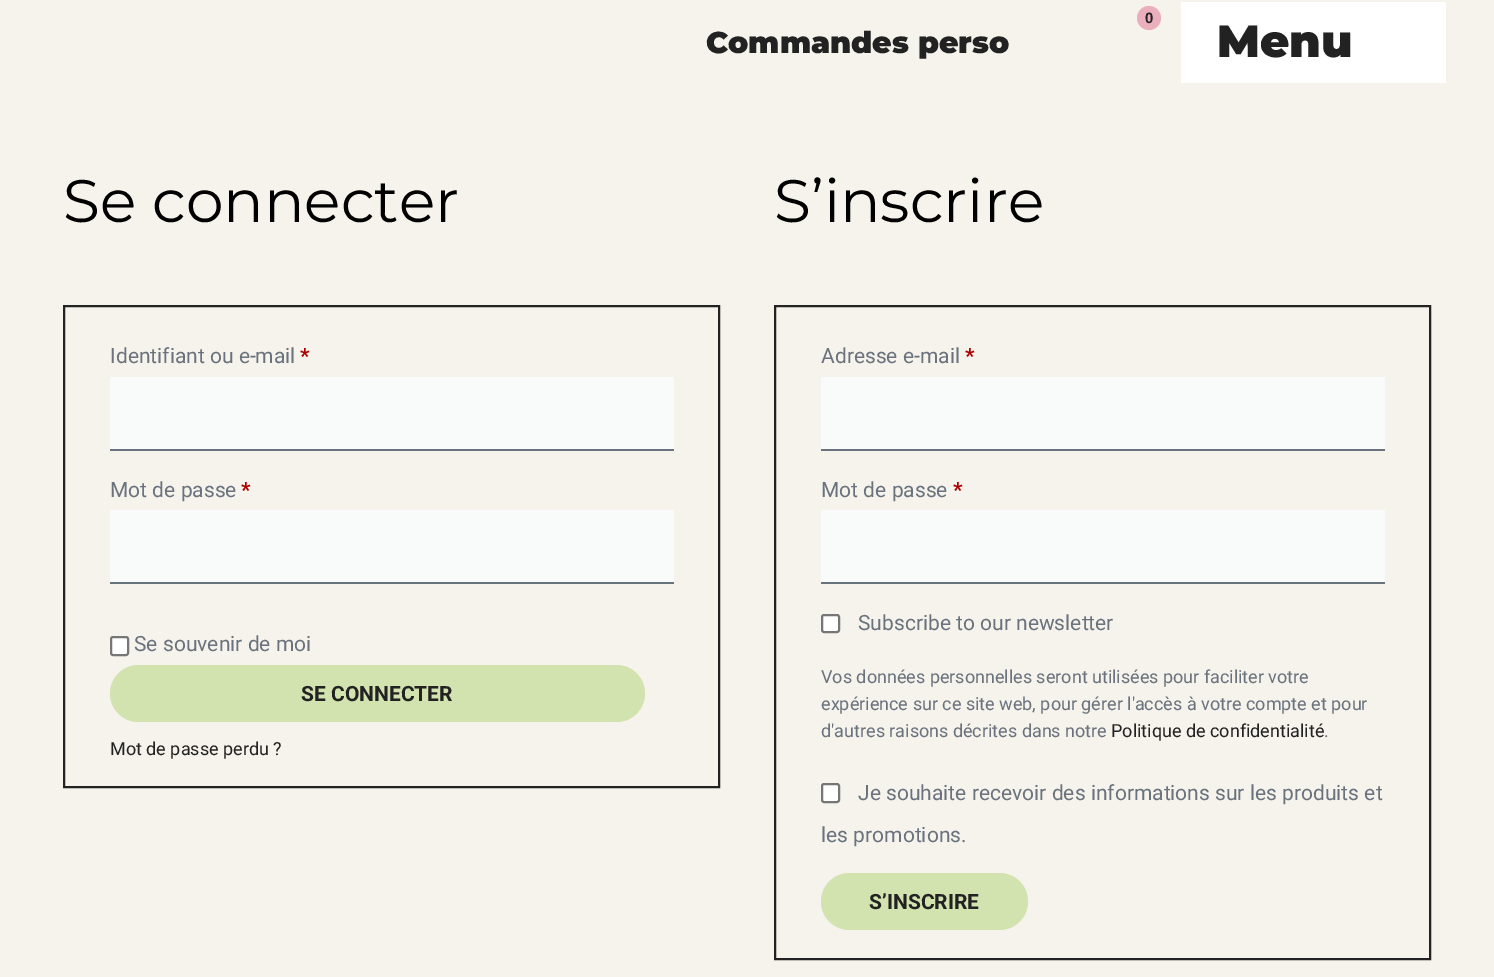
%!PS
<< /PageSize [1494 977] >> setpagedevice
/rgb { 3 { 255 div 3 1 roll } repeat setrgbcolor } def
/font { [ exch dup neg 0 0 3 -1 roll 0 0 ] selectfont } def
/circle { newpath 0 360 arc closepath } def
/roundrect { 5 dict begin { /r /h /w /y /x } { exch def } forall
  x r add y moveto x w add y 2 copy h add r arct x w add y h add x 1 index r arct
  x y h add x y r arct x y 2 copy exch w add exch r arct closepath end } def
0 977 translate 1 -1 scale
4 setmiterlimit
245 243 235 rgb
0 0 1494 977 rectfill
235 174 189 rgb
1149 18 12 circle fill
255 255 255 rgb
1181 2 265 81 rectfill
34 34 34 rgb
2 setlinewidth
64 306 655 481 rectstroke
[
  [110 377 564 72 249 250 250]
  [110 449 564 2 105 114 125]
  [110 510 564 72 249 250 250]
  [110 582 564 2 105 114 125]
] { aload pop rgb rectfill } forall
255 255 255 rgb
111 637 17 18 2 roundrect gsave fill grestore
118 118 118 rgb
stroke
211 227 175 rgb
110 665 535 57 28.5 roundrect fill
34 34 34 rgb
775 306 655 653 rectstroke
[
  [821 377 564 72 249 250 250]
  [821 449 564 2 105 114 125]
  [821 510 564 72 249 250 250]
  [821 582 564 2 105 114 125]
] { aload pop rgb rectfill } forall
255 255 255 rgb
822 615 17 17 2 roundrect gsave fill grestore
118 118 118 rgb
stroke
255 255 255 rgb
822 784 17 18 2 roundrect gsave fill grestore
118 118 118 rgb
stroke
211 227 175 rgb
821 873 207 57 28.5 roundrect fill
/LiberationSans-Bold 15 font
34 34 34 rgb
1145 23 moveto (0) show
/Montserrat-Black 30 font
706 53 moveto (Commandes perso) show
/Montserrat-Black 45 font
1217 57 moveto (Menu) show
/Montserrat-Regular 60 font
0 0 0 rgb
63 222 moveto (Se connecter) show
/Roboto-Regular 21 font
105 114 125 rgb
110 363 moveto (Identifiant ou e-mail) show
/Roboto-Bold 21 font
170 0 0 rgb
300 363 moveto (*) show
/Roboto-Regular 21 font
105 114 125 rgb
110 497 moveto (Mot de passe) show
/Roboto-Bold 21 font
170 0 0 rgb
241 497 moveto (*) show
/Roboto-Regular 21 font
105 114 125 rgb
134 651 moveto (Se souvenir de moi) show
/Roboto-Bold 21 font
34 34 34 rgb
301 701 moveto (SE CONNECTER) show
/Roboto-Regular 18 font
110 755 moveto (Mot de passe perdu ?) show
/Montserrat-Regular 60 font
0 0 0 rgb
774 222 moveto (S’inscrire) show
/Roboto-Regular 21 font
105 114 125 rgb
821 363 moveto (Adresse e-mail) show
/Roboto-Bold 21 font
170 0 0 rgb
965 363 moveto (*) show
/Roboto-Regular 21 font
105 114 125 rgb
821 497 moveto (Mot de passe) show
/Roboto-Bold 21 font
170 0 0 rgb
953 497 moveto (*) show
/Roboto-Regular 21 font
105 114 125 rgb
858 630 moveto (Subscribe to our newsletter) show
/Roboto-Regular 18 font
[
  [(Vos données personnelles seront utilisées pour faciliter votre) 821 683]
  [(expérience sur ce site web, pour gérer l'accès à votre compte et pour) 821 710]
  [(d'autres raisons décrites dans notre) 821 737]
] { aload pop moveto show } forall
34 34 34 rgb
1111 737 moveto (Politique de confidentialité) show
105 114 125 rgb
1324 737 moveto (.) show
/Roboto-Regular 21 font
858 800 moveto (Je souhaite recevoir des informations sur les produits et) show
821 842 moveto (les promotions.) show
/Roboto-Bold 21 font
34 34 34 rgb
869 909 moveto (S’INSCRIRE) show
showpage
